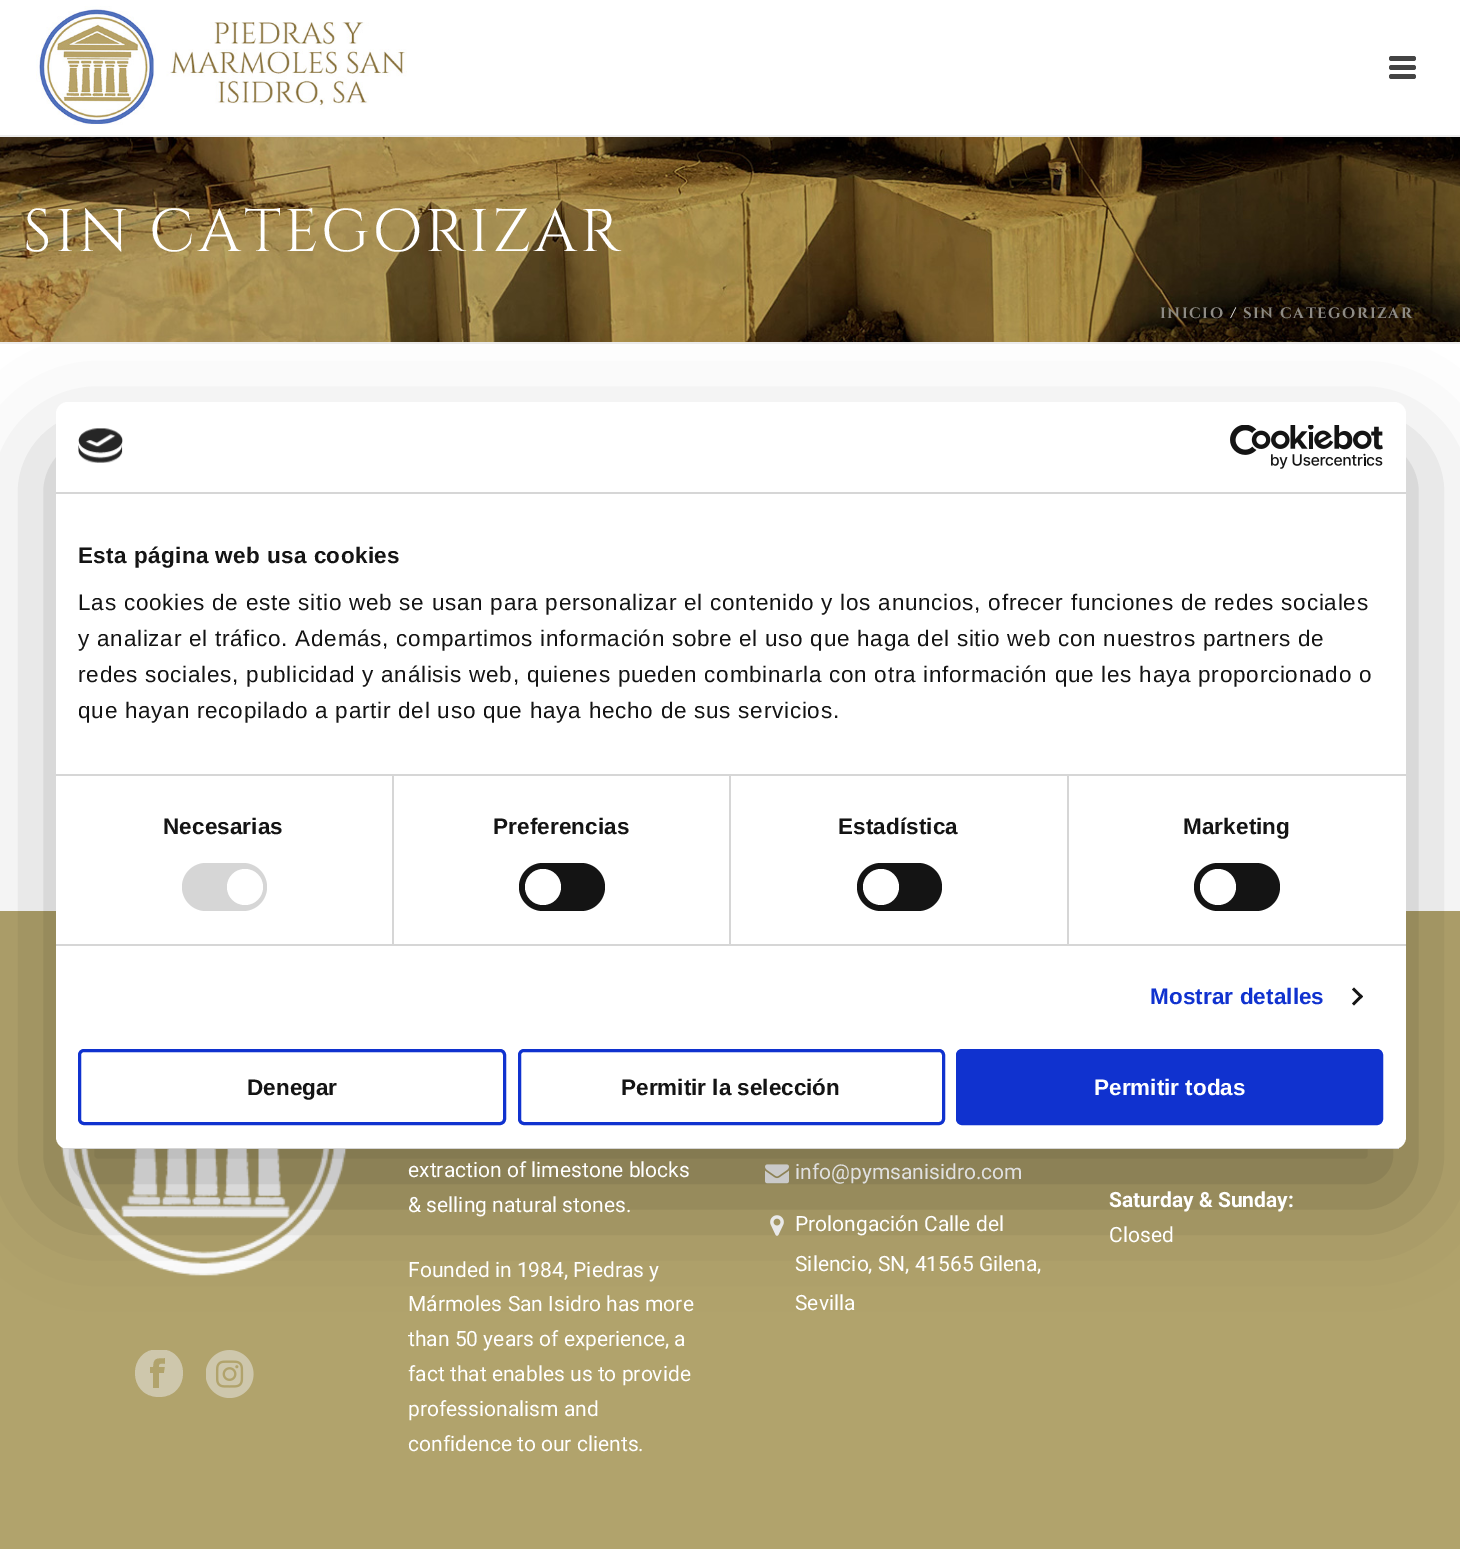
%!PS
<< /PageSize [1460 1549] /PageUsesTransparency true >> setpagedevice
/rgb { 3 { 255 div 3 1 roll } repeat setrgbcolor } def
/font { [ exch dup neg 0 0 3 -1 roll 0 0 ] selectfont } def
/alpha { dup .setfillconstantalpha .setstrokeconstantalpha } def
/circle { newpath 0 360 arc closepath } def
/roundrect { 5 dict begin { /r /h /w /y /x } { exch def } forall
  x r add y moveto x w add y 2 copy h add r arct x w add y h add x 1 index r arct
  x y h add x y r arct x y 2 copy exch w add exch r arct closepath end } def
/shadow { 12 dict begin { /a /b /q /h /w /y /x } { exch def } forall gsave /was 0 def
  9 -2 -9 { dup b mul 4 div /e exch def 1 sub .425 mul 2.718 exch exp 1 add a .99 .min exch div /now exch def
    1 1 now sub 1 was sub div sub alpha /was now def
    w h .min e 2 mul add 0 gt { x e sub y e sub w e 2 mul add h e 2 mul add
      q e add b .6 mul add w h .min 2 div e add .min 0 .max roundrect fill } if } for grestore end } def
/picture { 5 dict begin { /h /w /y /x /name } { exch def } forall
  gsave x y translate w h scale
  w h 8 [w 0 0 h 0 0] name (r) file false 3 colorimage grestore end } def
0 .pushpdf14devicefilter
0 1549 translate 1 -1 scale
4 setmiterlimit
255 255 255 rgb
0 0 1460 1549 rectfill
(img/1.rgb) 0 137 1460 205 picture
237 237 237 rgb
0 342 1460 2 rectfill
0 135 1460 2 rectfill
(img/2.rgb) 36 6 371 119 picture
68 68 68 rgb
1389 56 27 5 2.5 roundrect fill
1389 65 27 5 2.5 roundrect fill
1389 74 27 5 2.5 roundrect fill
177 163 108 rgb
0 911 1460 638 rectfill
(img/3.rgb) 61 1146 286 130 picture
gsave
135 1350 48 48 rectclip
206 199 172 rgb
159 1349 moveto 127 1349 127 1397 159 1397 curveto 191 1397 191 1349 159 1349 curveto closepath 165 1364 moveto 161 1364 159 1363 159 1367 curveto 165 1367 lineto 164 1373 lineto 159 1373 lineto 159 1388 lineto 153 1388 lineto 153 1373 lineto 150 1373 lineto 150 1367 lineto 153 1367 lineto 153 1358 156 1358 165 1358 curveto closepath fill
grestore
(img/4.rgb) 206 1350 48 48 picture
(img/5.rgb) 765 1164 24 20 picture
(img/6.rgb) 770 1215 14 21 picture
0 0 0 rgb
56 450 1350 747 12 51 0.3 shadow
255 255 255 rgb
56 402 1350 747 12 roundrect fill
214 214 214 rgb
56 492 1350 2 rectfill
(img/7.rgb) 78 428 45 35 picture
(img/8.rgb) 1230 425 153 44 picture
[
  [56 774 1350 2 214 214 214]
  [56 944 1350 2 214 214 214]
  [392 776 2 168 214 214 214]
] { aload pop rgb rectfill } forall
182 863 85 48 24 roundrect fill
255 255 255 rgb
245 887 18 circle fill
214 214 214 rgb
729 776 2 168 rectfill
20 20 20 rgb
519 863 86 48 24 roundrect fill
255 255 255 rgb
543 887 18 circle fill
214 214 214 rgb
1067 776 2 168 rectfill
20 20 20 rgb
857 863 85 48 24 roundrect fill
255 255 255 rgb
881 887 18 circle fill
20 20 20 rgb
1194 863 86 48 24 roundrect fill
255 255 255 rgb
1218 887 18 circle fill
20 20 20 rgb
1354 987.5 moveto 1363 996.5 lineto 1361 998.5 lineto 1352 989.5 lineto closepath fill
1361 994.5 moveto 1363 996.5 lineto 1354 1005.5 lineto 1352 1003.5 lineto closepath fill
gsave
56 402 1350 747 12 roundrect clip newpath
214 214 214 rgb
56 1148 1350 1 rectfill
grestore
16 50 207 rgb
3 setlinewidth
79.5 1050.5 425 73 4.5 roundrect stroke
519.5 1050.5 424 73 4.5 roundrect stroke
957.5 1050.5 424 73 4.5 roundrect gsave fill grestore
stroke
/Cinzel-Regular 60 font
255 255 255 rgb
23 251 moveto 3 0 (SIN CATEGORIZAR) ashow
/Cinzel-Bold 15 font
142 139 133 rgb
1160 318 moveto 1.5 0 (INICIO) ashow
255 255 255 rgb
1230 318 moveto 1.5 0 (/) ashow
142 139 133 rgb
1243 318 moveto 1.5 0 (SIN CATEGORIZAR) ashow
/Roboto-Regular 21 font
255 255 255 rgb
[
  [(extraction of limestone blocks) 408 1177]
  [(& selling natural stones.) 408 1212]
  [(Founded in 1984, Piedras y) 408 1277]
  [(Mármoles San Isidro has more) 408 1311]
  [(than 50 years of experience, a) 408 1346]
  [(fact that enables us to provide) 408 1381]
  [(professionalism and) 408 1416]
  [(confidence to our clients.) 408 1451]
] { aload pop moveto show } forall
224 224 224 rgb
795 1179 moveto (info@pymsanisidro.com) show
255 255 255 rgb
[
  [(Prolongación Calle del) 795 1231]
  [(Silencio, SN, 41565 Gilena,) 795 1271]
  [(Sevilla) 795 1310]
] { aload pop moveto show } forall
/Roboto-Bold 21 font
1109 1207 moveto (Saturday & Sunday:) show
/Roboto-Regular 21 font
1109 1242 moveto (Closed) show
/LiberationSans-Bold 22.5 font
20 20 20 rgb
78 563 moveto 0.4 0 (Esta página web usa cookies) ashow
/LiberationSans-Regular 22.5 font
78 610 moveto 0.75 0 (Las cookies de este sitio web se usan para personalizar el contenido y los anuncios, ofrecer funciones de redes sociales) ashow
78 646 moveto 0.75 0 (y analizar el tráfico. Además, compartimos información sobre el uso que haga del sitio web con nuestros partners de) ashow
78 682 moveto 0.75 0 (redes sociales, publicidad y análisis web, quienes pueden combinarla con otra información que les haya proporcionado o) ashow
78 718 moveto 0.75 0 (que hayan recopilado a partir del uso que haya hecho de sus servicios.) ashow
/LiberationSans-Bold 22.5 font
163 834 moveto 0.1 0 (Necesarias) ashow
493 834 moveto 0.1 0 (Preferencias) ashow
838 834 moveto 0.1 0 (Estadística) ashow
1183 834 moveto 0.1 0 (Marketing) ashow
16 50 207 rgb
1150 1004 moveto 0.1 0 (Mostrar detalles) ashow
20 20 20 rgb
247 1095 moveto (Denegar) show
621 1095 moveto (Permitir la selección) show
255 255 255 rgb
1094 1095 moveto (Permitir todas) show
.poppdf14devicefilter showpage
